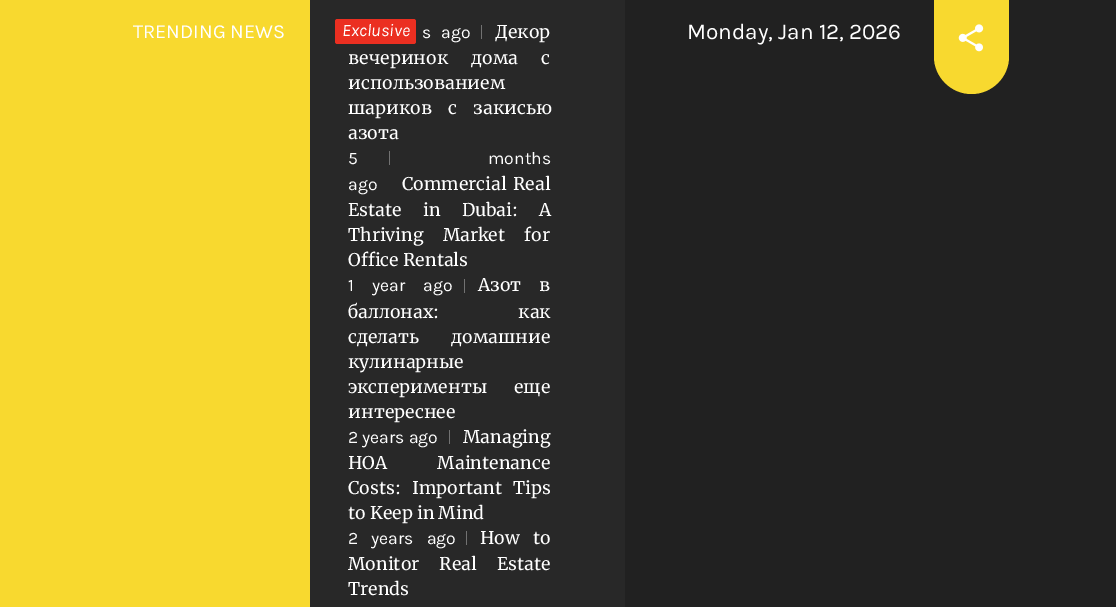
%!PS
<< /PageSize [1116 607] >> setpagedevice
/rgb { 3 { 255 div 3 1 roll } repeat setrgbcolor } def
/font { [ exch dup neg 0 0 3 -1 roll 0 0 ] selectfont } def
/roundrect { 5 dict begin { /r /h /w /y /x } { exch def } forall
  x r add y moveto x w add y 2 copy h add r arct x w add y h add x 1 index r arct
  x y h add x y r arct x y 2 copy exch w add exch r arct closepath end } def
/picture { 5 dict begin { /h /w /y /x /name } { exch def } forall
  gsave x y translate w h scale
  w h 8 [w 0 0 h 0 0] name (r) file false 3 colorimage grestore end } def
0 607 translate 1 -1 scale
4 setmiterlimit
248 217 47 rgb
0 0 1116 607 rectfill
33 33 33 rgb
625 0 491 607 rectfill
40 40 40 rgb
310 0 315 607 rectfill
235 47 33 rgb
335 19 81 25 2.5 roundrect fill
[
  [481 25 1 14 114 114 114]
  [464 279 1 14 114 114 114]
  [449 430 1 14 114 114 114]
  [466 531 1 14 114 114 114]
] { aload pop rgb rectfill } forall
248 217 47 rgb
934 0 moveto 1009 0 lineto 1009 56.5 lineto 1009 77 992 94 971.5 94 curveto 951 94 934 77 934 56.5 curveto closepath fill
(img/1.rgb) 958 24 26 28 picture
/Karla-Regular 20 font
255 255 255 rgb
133 38 moveto (TRENDING NEWS) show
/Karla-Italic 17.5 font
342 36 moveto (Exclusive) show
/Karla-Regular 17.5 font
422 38 moveto 6 0 32 (s ago) widthshow
/Merriweather-Regular 17.5 font
495 38 moveto (Декор) show
348 64 moveto 19 0 32 (вечеринок дома с) widthshow
348 89 moveto (использованием) show
348 114 moveto 12 0 32 (шариков с закисью) widthshow
348 139 moveto (азота) show
/Karla-Regular 17.5 font
348 164 moveto 126 0 32 (5 months) widthshow
114 114 114 rgb
389 151 1 14 rectfill
255 255 255 rgb
348 190 moveto (ago) show
/Merriweather-Regular 17.5 font
402 190 moveto 2 0 32 (Commercial Real) widthshow
348 216 moveto 17 0 32 (Estate in Dubai: A) widthshow
348 241 moveto 15 0 32 (Thriving Market for) widthshow
348 266 moveto (Office Rentals) show
/Karla-Regular 17.5 font
348 291 moveto 14 0 32 (1 year ago) widthshow
/Merriweather-Regular 17.5 font
478 291 moveto 14 0 32 (Азот в) widthshow
348 318 moveto 75 0 32 (баллонах: как) widthshow
348 343 moveto 28 0 32 (сделать домашние) widthshow
348 368 moveto (кулинарные) show
348 393 moveto 23 0 32 (эксперименты еще) widthshow
348 418 moveto (интереснее) show
/Karla-Regular 17.5 font
348 443 moveto (2 years ago) show
/Merriweather-Regular 17.5 font
463 443 moveto (Managing) show
348 469 moveto 46 0 32 (HOA Maintenance) widthshow
348 494 moveto 7 0 32 (Costs: Important Tips) widthshow
348 519 moveto (to Keep in Mind) show
/Karla-Regular 17.5 font
348 544 moveto 9 0 32 (2 years ago) widthshow
/Merriweather-Regular 17.5 font
480 544 moveto 9 0 32 (How to) widthshow
348 570 moveto 16 0 32 (Monitor Real Estate) widthshow
348 595 moveto (Trends) show
/Karla-Regular 22.5 font
687 39 moveto (Monday, Jan 12, 2026) show
showpage
